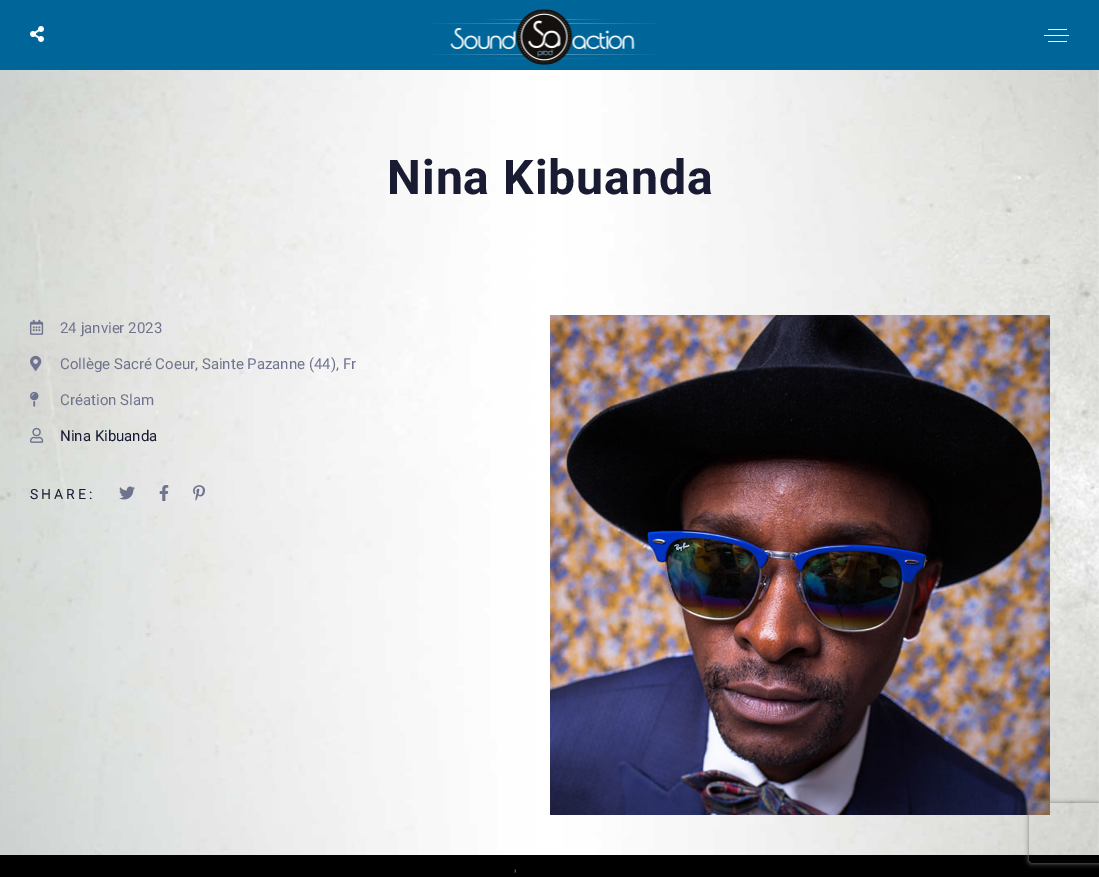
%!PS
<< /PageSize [1099 877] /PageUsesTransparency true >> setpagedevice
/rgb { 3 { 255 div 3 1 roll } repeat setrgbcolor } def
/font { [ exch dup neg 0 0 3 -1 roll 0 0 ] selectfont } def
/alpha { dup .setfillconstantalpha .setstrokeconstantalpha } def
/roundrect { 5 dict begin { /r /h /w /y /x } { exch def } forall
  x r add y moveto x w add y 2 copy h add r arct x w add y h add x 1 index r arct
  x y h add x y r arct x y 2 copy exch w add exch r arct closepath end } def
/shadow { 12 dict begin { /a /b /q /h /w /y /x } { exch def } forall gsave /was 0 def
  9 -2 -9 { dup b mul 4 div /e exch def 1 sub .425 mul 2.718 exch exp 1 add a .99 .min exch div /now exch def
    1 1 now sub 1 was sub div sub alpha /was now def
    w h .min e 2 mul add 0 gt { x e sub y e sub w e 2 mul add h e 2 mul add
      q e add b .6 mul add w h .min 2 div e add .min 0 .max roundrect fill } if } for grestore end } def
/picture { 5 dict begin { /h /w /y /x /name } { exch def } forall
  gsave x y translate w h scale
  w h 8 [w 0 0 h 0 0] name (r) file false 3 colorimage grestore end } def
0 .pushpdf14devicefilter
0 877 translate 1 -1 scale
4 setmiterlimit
255 255 255 rgb
0 0 1099 877 rectfill
(img/1.rgb) 1098 70 1 785 picture
0 102 153 rgb
0 0 1099 70 rectfill
(img/2.rgb) 30 26 14 16 picture
(img/3.rgb) 430 9 229 56 picture
[
  [1048 29 19 1 255 255 255]
  [1044 35 25 1 255 255 255]
  [1048 41 19 1 255 255 255]
] { aload pop rgb rectfill } forall
(img/4.rgb) 0 70 1099 785 picture
(img/5.rgb) 30 319 14 16 picture
(img/6.rgb) 30 355 12 16 picture
(img/7.rgb) 30 391 9 16 picture
(img/8.rgb) 30 427 14 16 picture
(img/9.rgb) 119 486 16 14 picture
(img/10.rgb) 159 485 10 16 picture
(img/11.rgb) 193 485 12 16 picture
(img/12.rgb) 550 315 500 500 picture
0 0 0 rgb
0 855 1099 22 rectfill
gsave
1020 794 moveto 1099 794 lineto 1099 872 lineto 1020 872 lineto closepath 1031 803 moveto 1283 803 lineto 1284 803 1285 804 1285 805 curveto 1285 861 lineto 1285 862 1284 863 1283 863 curveto 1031 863 lineto 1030 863 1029 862 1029 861 curveto 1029 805 lineto 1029 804 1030 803 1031 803 curveto closepath eoclip newpath
128 128 128 rgb
1029 803 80 60 2 2.5 1 shadow
grestore
/Roboto-Bold 48 font
24 27 49 rgb
387 194 moveto 1 0 (Nina Kibuanda) ashow
/Roboto-Regular 15 font
111 115 143 rgb
[
  [(24 janvier 2023) 60 333]
  [(Collège Sacré Coeur, Sainte Pazanne \(44\), Fr) 60 369]
  [(Création Slam) 60 405]
] { aload pop moveto show } forall
24 27 49 rgb
60 441 moveto (Nina Kibuanda) show
/Roboto-Regular 14 font
30 499 moveto 3 0 (SHARE:) ashow
111 115 143 rgb
514 880 moveto (') show
.poppdf14devicefilter showpage
